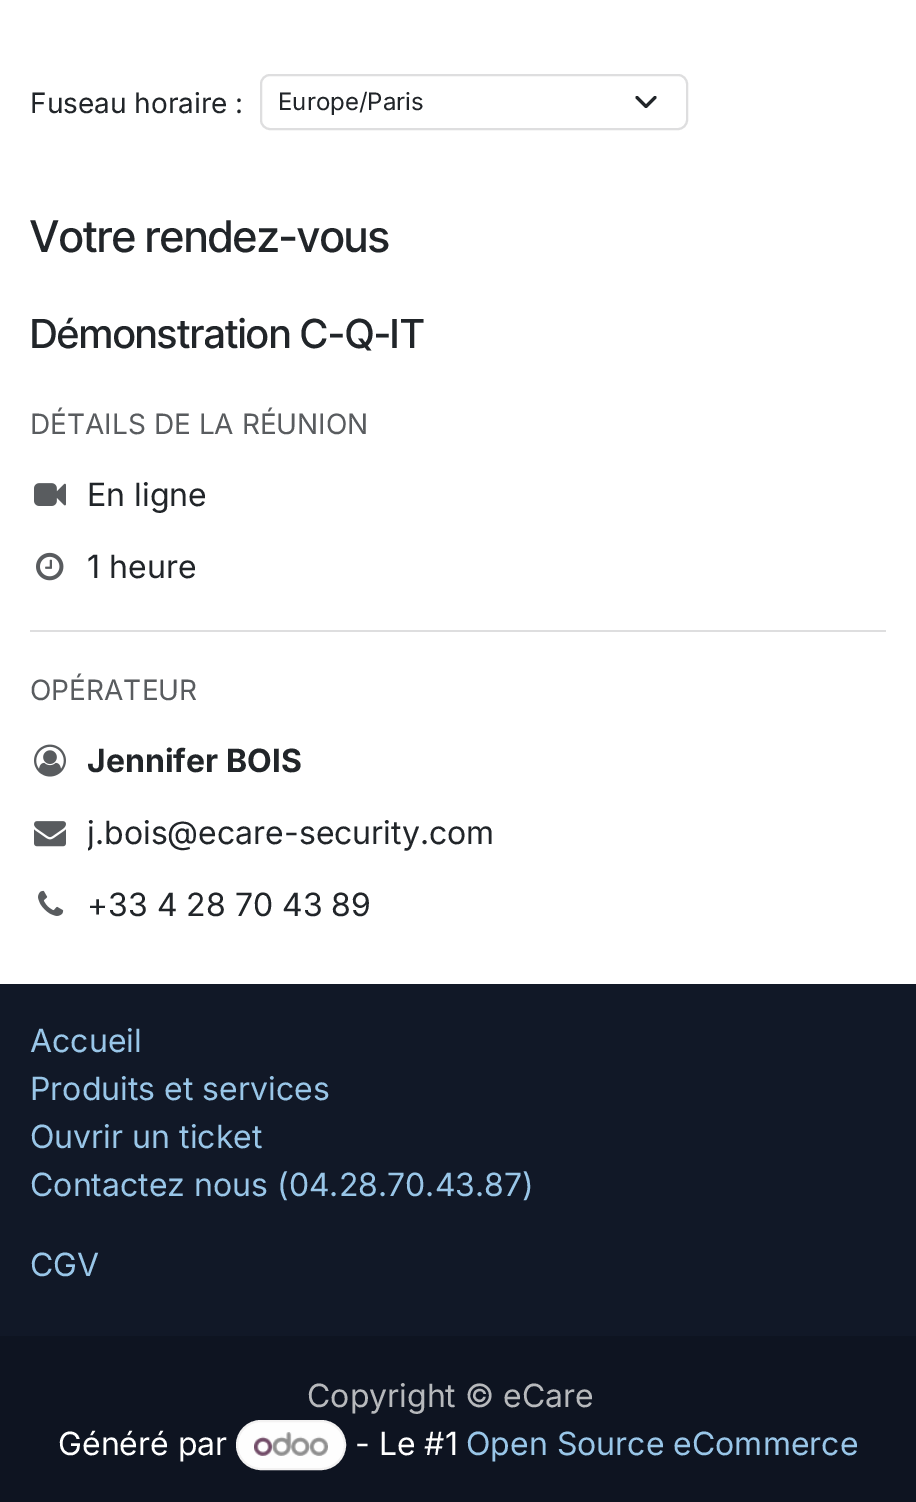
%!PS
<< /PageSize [916 1502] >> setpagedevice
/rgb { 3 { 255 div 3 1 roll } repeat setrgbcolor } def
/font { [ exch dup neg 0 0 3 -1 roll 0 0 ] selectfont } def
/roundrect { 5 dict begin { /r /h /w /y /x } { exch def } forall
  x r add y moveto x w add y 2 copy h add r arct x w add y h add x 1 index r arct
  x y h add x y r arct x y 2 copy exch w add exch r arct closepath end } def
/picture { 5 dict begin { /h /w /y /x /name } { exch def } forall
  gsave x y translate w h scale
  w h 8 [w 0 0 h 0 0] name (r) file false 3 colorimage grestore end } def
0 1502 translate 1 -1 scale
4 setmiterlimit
255 255 255 rgb
0 0 916 1502 rectfill
33 37 41 rgb
3 setlinewidth
1 setlinecap
1 setlinejoin
637 97.5 moveto 646 106.5 lineto 655 97.5 lineto stroke
222 222 223 rgb
2 setlinewidth
0 setlinecap
0 setlinejoin
261 75 426 54 9 roundrect stroke
(img/1.rgb) 34 483 32 23 picture
(img/2.rgb) 36 552 28 29 picture
30 630 856 2 rectfill
(img/3.rgb) 34 744 32 33 picture
(img/4.rgb) 34 821 32 26 picture
(img/5.rgb) 38 890 26 26 picture
17 24 39 rgb
0 984 916 352 rectfill
14 20 33 rgb
0 1336 916 166 rectfill
254 254 254 rgb
237 1421 108 48 24 roundrect gsave fill grestore
243 242 242 rgb
stroke
(img/6.rgb) 254 1432 74 24 picture
/Inter-Regular 28 font
33 37 41 rgb
30 113 moveto (Fuseau horaire :) show
/Inter-Regular 24 font
278 110 moveto (Europe/Paris) show
/InterTight-Medium 43.5 font
30 252 moveto (Votre rendez-vous) show
/InterTight-Medium 40 font
30 348 moveto (Démonstration C-Q-IT) show
/Inter-Regular 28 font
89 92 95 rgb
30 434 moveto (DÉTAILS DE LA RÉUNION) show
/Inter-Regular 32 font
33 37 41 rgb
87 506 moveto (En ligne) show
87 578 moveto (1 heure) show
/Inter-Regular 28 font
89 92 95 rgb
30 700 moveto (OPÉRATEUR) show
/Inter-Bold 32 font
33 37 41 rgb
87 772 moveto (Jennifer BOIS) show
gsave
88 808 406 48 rectclip
/Inter-Regular 32 font
87 844 moveto (j.bois@ecare-security.com) show
grestore
/Inter-Regular 32 font
87 916 moveto (+33 4 28 70 43 89) show
153 198 232 rgb
[
  [(Accueil) 30 1052]
  [(Produits et services) 30 1100]
  [(Ouvrir un ticket) 30 1148]
  [(Contactez nous \(04.28.70.43.87\)) 30 1196]
  [(CGV) 30 1276]
] { aload pop moveto show } forall
183 185 188 rgb
307 1407 moveto (Copyright © eCare) show
255 255 255 rgb
58 1455 moveto (Généré par) show
355 1455 moveto (- Le #1) show
153 198 232 rgb
466 1455 moveto (Open Source eCommerce) show
showpage
